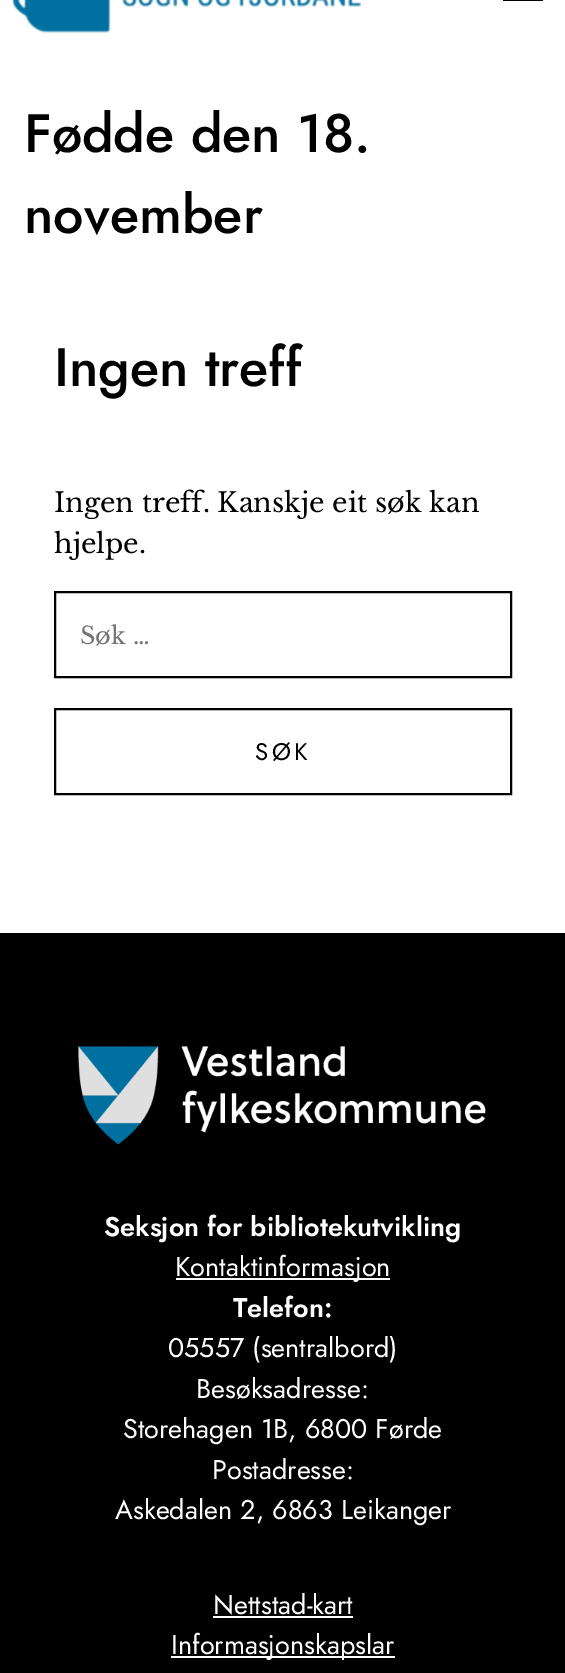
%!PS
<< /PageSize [565 1673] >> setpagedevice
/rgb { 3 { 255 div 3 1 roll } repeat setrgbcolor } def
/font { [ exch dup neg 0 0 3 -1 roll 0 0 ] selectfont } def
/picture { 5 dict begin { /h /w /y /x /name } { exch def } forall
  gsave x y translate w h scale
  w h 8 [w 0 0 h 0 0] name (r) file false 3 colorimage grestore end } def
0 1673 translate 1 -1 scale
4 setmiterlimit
255 255 255 rgb
0 0 565 1673 rectfill
(img/1.rgb) 12 0 350 33 picture
0 0 0 rgb
503 0 40 1 rectfill
2 setlinewidth
55 592 456 85 rectstroke
55 709 456 85 rectstroke
0 933 565 740 rectfill
(img/2.rgb) 78 1046 408 99 picture
[
  [176 1278 214 2 255 255 255]
  [213 1616 140 2 255 255 255]
  [171 1656 224 2 255 255 255]
] { aload pop rgb rectfill } forall
/Jost-Medium 54 font
0 0 0 rgb
[
  [(Fødde den 18.) 24 152]
  [(november) 24 233]
  [(Ingen treff) 54 386]
] { aload pop moveto show } forall
/LibreBaskerville-Regular 27 font
54 512 moveto (Ingen treff. Kanskje eit søk kan) show
54 553 moveto (hjelpe.) show
/LibreBaskerville-Regular 24 font
117 117 117 rgb
80 644 moveto (Søk …) show
/Jost-Regular 24 font
0 0 0 rgb
255 760 moveto 3.5 0 (SØK) ashow
/Jost-SemiBold 27 font
255 255 255 rgb
104 1236 moveto (Seksjon for bibliotekutvikling) show
/Jost-Regular 27 font
175 1276 moveto (Kontaktinformasjon) show
/Jost-SemiBold 27 font
233 1317 moveto (Telefon:) show
/Jost-Regular 27 font
[
  [(05557 \(sentralbord\)) 168 1357]
  [(Besøksadresse:) 196 1398]
  [(Storehagen 1B, 6800 Førde) 123 1438]
  [(Postadresse:) 212 1479]
  [(Askedalen 2, 6863 Leikanger) 115 1519]
  [(Nettstad-kart) 213 1614]
  [(Informasjonskapslar) 171 1654]
] { aload pop moveto show } forall
showpage
